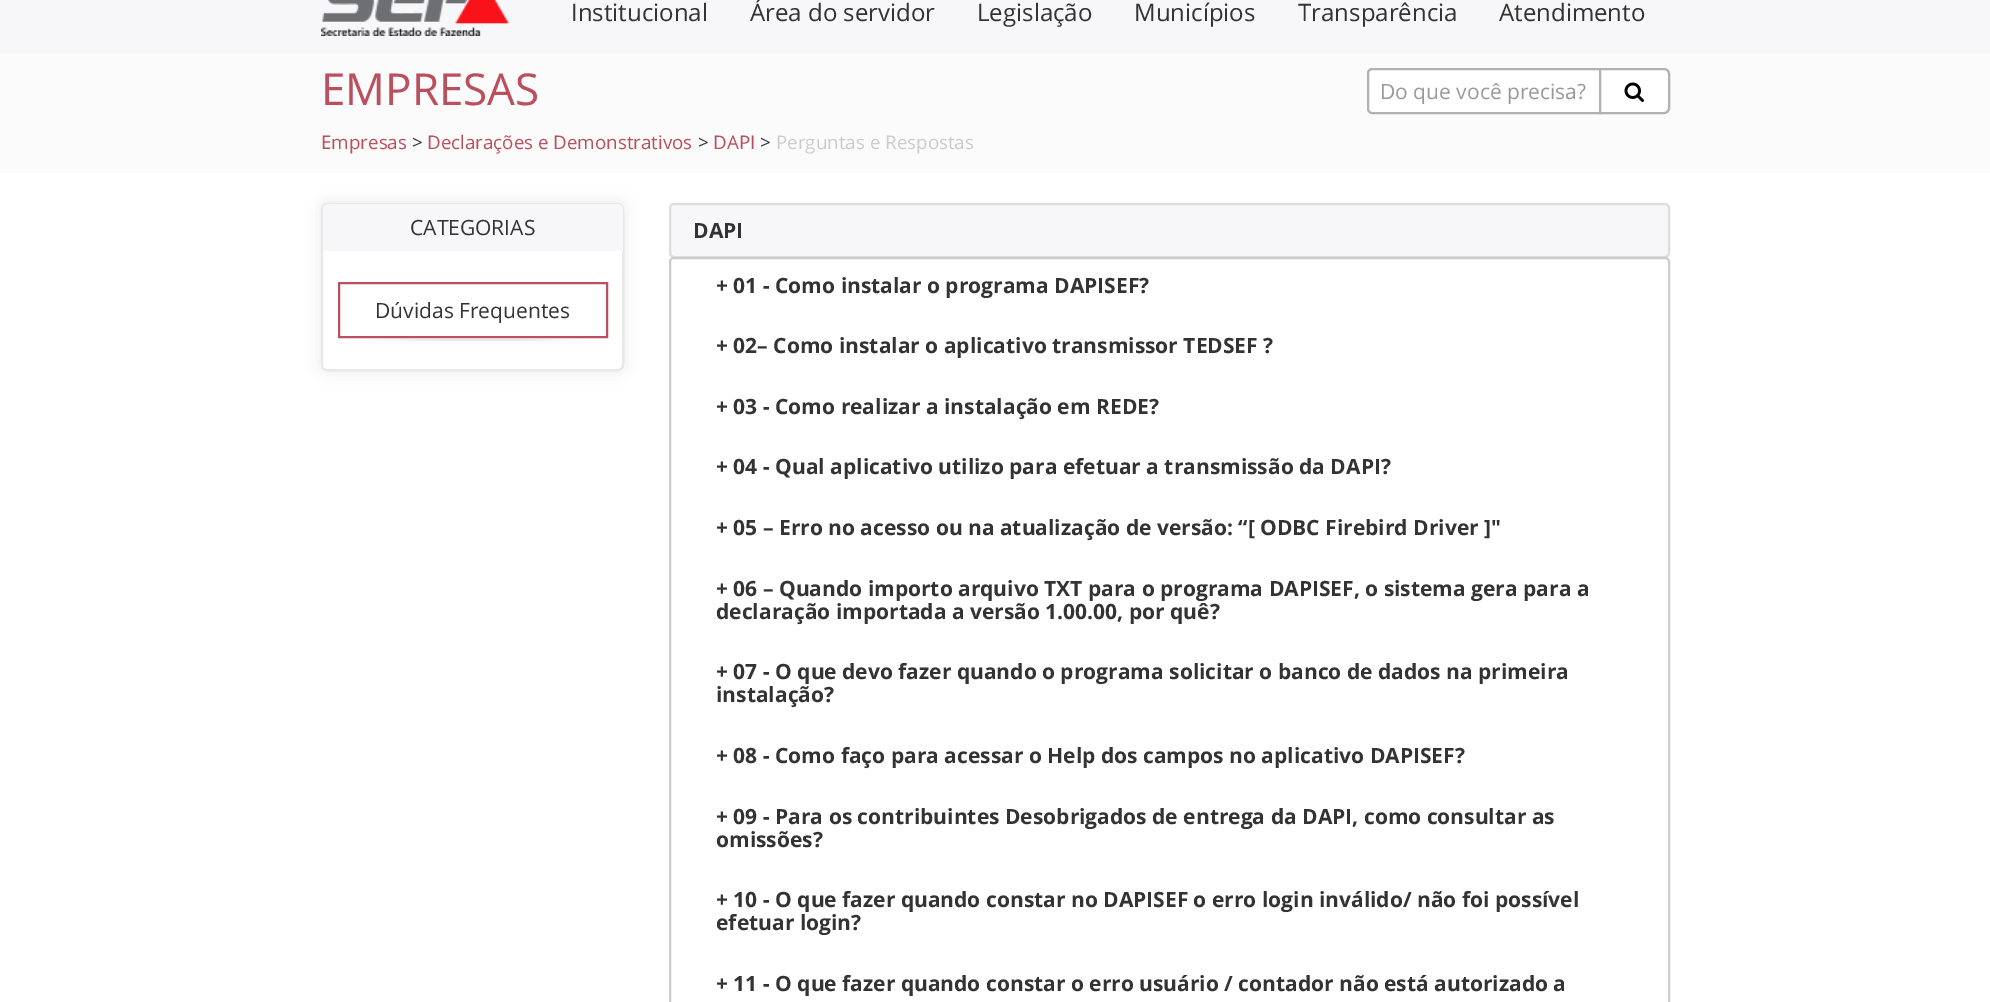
%!PS
<< /PageSize [1990 1002] /PageUsesTransparency true >> setpagedevice
/rgb { 3 { 255 div 3 1 roll } repeat setrgbcolor } def
/font { [ exch dup neg 0 0 3 -1 roll 0 0 ] selectfont } def
/alpha { dup .setfillconstantalpha .setstrokeconstantalpha } def
/roundrect { 5 dict begin { /r /h /w /y /x } { exch def } forall
  x r add y moveto x w add y 2 copy h add r arct x w add y h add x 1 index r arct
  x y h add x y r arct x y 2 copy exch w add exch r arct closepath end } def
/shadow { 12 dict begin { /a /b /q /h /w /y /x } { exch def } forall gsave /was 0 def
  9 -2 -9 { dup b mul 4 div /e exch def 1 sub .425 mul 2.718 exch exp 1 add a .99 .min exch div /now exch def
    1 1 now sub 1 was sub div sub alpha /was now def
    w h .min e 2 mul add 0 gt { x e sub y e sub w e 2 mul add h e 2 mul add
      q e add b .6 mul add w h .min 2 div e add .min 0 .max roundrect fill } if } for grestore end } def
/picture { 5 dict begin { /h /w /y /x /name } { exch def } forall
  gsave x y translate w h scale
  w h 8 [w 0 0 h 0 0] name (r) file false 3 colorimage grestore end } def
0 .pushpdf14devicefilter
0 1002 translate 1 -1 scale
4 setmiterlimit
255 255 255 rgb
0 0 1990 1002 rectfill
247 247 249 rgb
0 0 1990 53 rectfill
(img/1.rgb) 321 0 188 36 picture
251 251 251 rgb
0 53 1990 120 rectfill
255 255 255 rgb
1372 69 moveto 1600 69 lineto 1600 113 lineto 1372 113 lineto 1370 113 1368 111 1368 109 curveto 1368 73 lineto 1368 71 1370 69 1372 69 curveto closepath gsave fill grestore
177 177 177 rgb
2 setlinewidth
stroke
255 255 255 rgb
1600 69 moveto 1664 69 lineto 1667 69 1669 71 1669 74 curveto 1669 108 lineto 1669 111 1667 113 1664 113 curveto 1600 113 lineto closepath gsave fill grestore
177 177 177 rgb
stroke
(img/2.rgb) 1624 82 20 20 picture
gsave
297 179 moveto 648 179 lineto 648 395 lineto 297 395 lineto closepath 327 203 moveto 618 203 lineto 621.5 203 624 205.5 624 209 curveto 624 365 lineto 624 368.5 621.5 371 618 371 curveto 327 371 lineto 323.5 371 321 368.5 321 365 curveto 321 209 lineto 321 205.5 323.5 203 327 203 curveto closepath eoclip newpath
232 232 232 rgb
321 203 303 168 6 7.5 1 shadow
grestore
232 232 232 rgb
322 204 301 166 5 roundrect stroke
247 247 249 rgb
329 204 moveto 617 204 lineto 620.5 204 623 206.5 623 210 curveto 623 251 lineto 323 251 lineto 323 210 lineto 323 206.5 325.5 204 329 204 curveto closepath fill
187 79 93 rgb
339 283 268 54 rectstroke
gsave 369 339 moveto 585 339 lineto 585 341 lineto 369 341 lineto closepath clip newpath
<< /ShadingType 2 /ColorSpace /DeviceRGB /Coords [360 340 585 340] /Extend [true true] /Function << /FunctionType 3 /Domain [0 1] /Functions [<< /FunctionType 2 /Domain [0 1] /C0 [1 1 1] /C1 [0.91 0.91 0.91] /N 1 >> << /FunctionType 2 /Domain [0 1] /C0 [0.91 0.91 0.91] /C1 [0.91 0.91 0.91] /N 1 >> << /FunctionType 2 /Domain [0 1] /C0 [0.91 0.91 0.91] /C1 [1 1 1] /N 1 >>] /Bounds [0.35 0.7] /Encode [0 1 0 1 0 1] >> >> shfill grestore
247 247 249 rgb
670 204 999 53 4 roundrect gsave fill grestore
221 221 221 rgb
stroke
204 204 204 rgb
670 258 999 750 4 roundrect stroke
/OpenSans-Regular 24 font
51 51 51 rgb
[
  [(Institucional) 571 21]
  [(Área do servidor) 750 21]
  [(Legislação) 977 21]
  [(Municípios) 1134 21]
  [(Transparência) 1298 21]
  [(Atendimento) 1499 21]
] { aload pop moveto show } forall
/OpenSans-Regular 44 font
187 79 93 rgb
321 105 moveto (EMPRESAS) show
/OpenSans-Regular 21 font
153 153 153 rgb
1380 99 moveto (Do que você precisa?) show
/OpenSans-Regular 18.75 font
187 79 93 rgb
321 149 moveto (Empresas) show
51 51 51 rgb
412 149 moveto (>) show
187 79 93 rgb
427 149 moveto (Declarações e Demonstrativos) show
51 51 51 rgb
698 149 moveto (>) show
187 79 93 rgb
713 149 moveto (DAPI) show
51 51 51 rgb
760 149 moveto (>) show
204 204 204 rgb
776 149 moveto (Perguntas e Respostas) show
/OpenSans-Regular 21 font
51 51 51 rgb
410 235 moveto (CATEGORIAS) show
375 318 moveto (Dúvidas Frequentes) show
/OpenSans-Bold 21 font
[
  [(DAPI) 693 238]
  [(+ 01 - Como instalar o programa DAPISEF?) 716 293]
  [(+ 02– Como instalar o aplicativo transmissor TEDSEF ?) 716 353]
  [(+ 03 - Como realizar a instalação em REDE?) 716 414]
  [(+ 04 - Qual aplicativo utilizo para efetuar a transmissão da DAPI?) 716 474]
  [(+ 05 – Erro no acesso ou na atualização de versão: “[ ODBC Firebird Driver ]") 716 535]
  [(+ 06 – Quando importo arquivo TXT para o programa DAPISEF, o sistema gera para a) 716 596]
  [(declaração importada a versão 1.00.00, por quê?) 716 619]
  [(+ 07 - O que devo fazer quando o programa solicitar o banco de dados na primeira) 716 679]
  [(instalação?) 716 702]
  [(+ 08 - Como faço para acessar o Help dos campos no aplicativo DAPISEF?) 716 763]
  [(+ 09 - Para os contribuintes Desobrigados de entrega da DAPI, como consultar as) 716 824]
  [(omissões?) 716 847]
  [(+ 10 - O que fazer quando constar no DAPISEF o erro login inválido/ não foi possível) 716 907]
  [(efetuar login?) 716 930]
  [(+ 11 - O que fazer quando constar o erro usuário / contador não está autorizado a) 716 991]
] { aload pop moveto show } forall
.poppdf14devicefilter showpage
